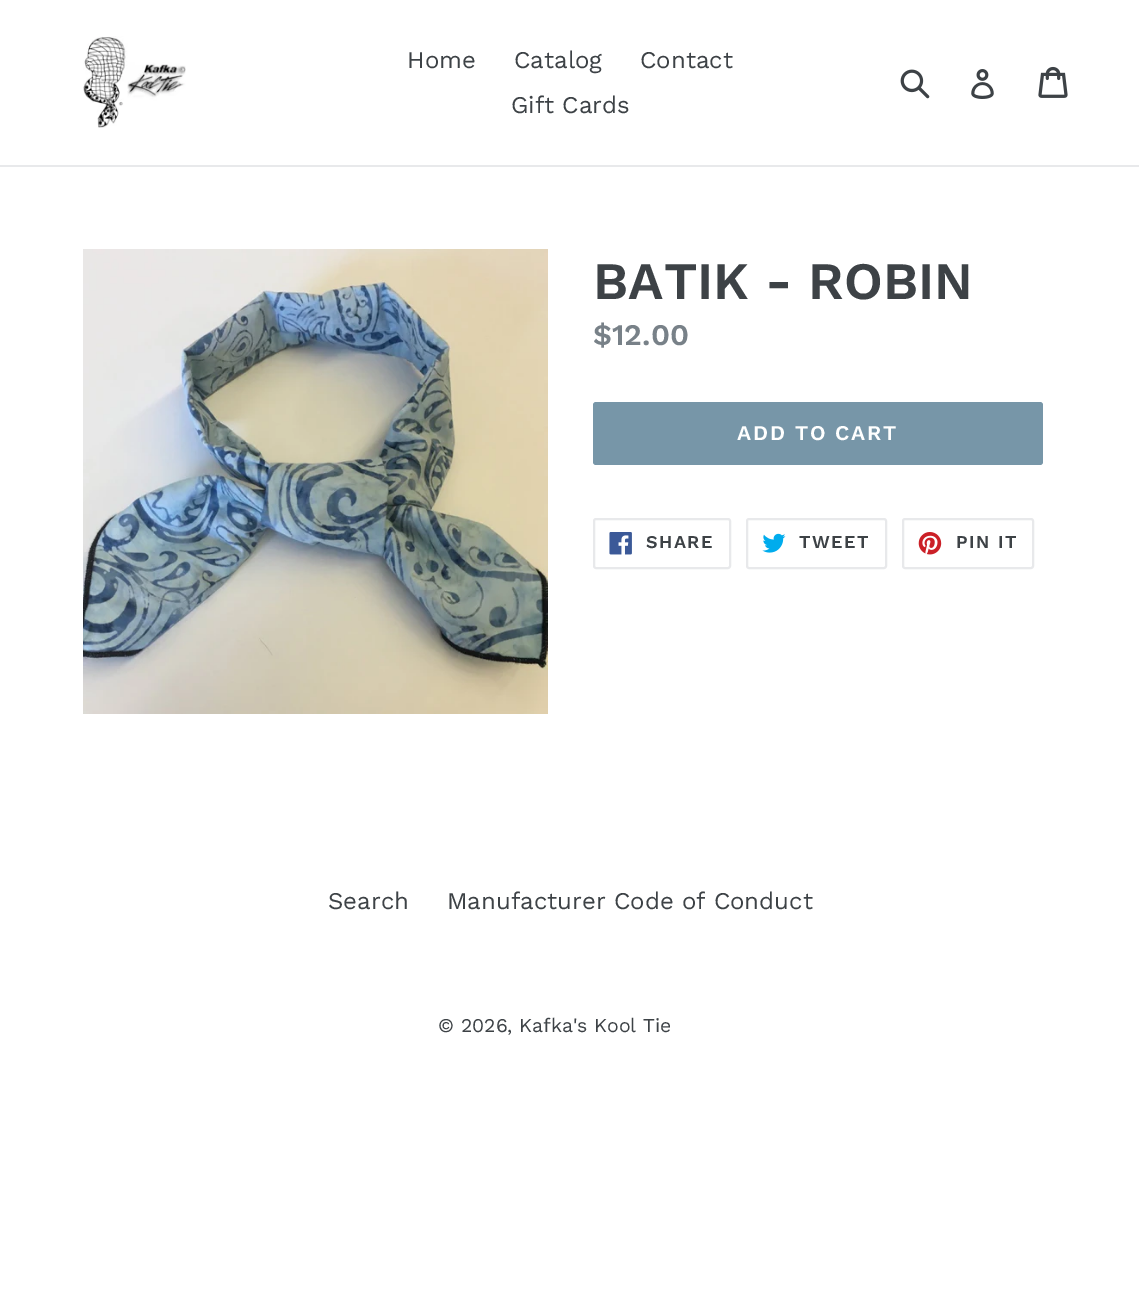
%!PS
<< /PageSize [1139 1314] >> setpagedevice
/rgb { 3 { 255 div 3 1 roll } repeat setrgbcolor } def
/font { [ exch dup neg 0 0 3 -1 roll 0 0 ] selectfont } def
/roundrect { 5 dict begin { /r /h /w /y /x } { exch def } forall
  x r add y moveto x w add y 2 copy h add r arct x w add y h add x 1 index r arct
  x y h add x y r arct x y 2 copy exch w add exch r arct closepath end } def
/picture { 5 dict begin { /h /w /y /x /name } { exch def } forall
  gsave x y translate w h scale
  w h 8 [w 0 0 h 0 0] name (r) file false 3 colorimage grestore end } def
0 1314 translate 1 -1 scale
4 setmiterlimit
255 255 255 rgb
0 0 1139 1314 rectfill
232 233 235 rgb
0 165 1139 2 rectfill
(img/1.rgb) 83 36 103 92 picture
(img/2.rgb) 900 69 30 30 picture
(img/3.rgb) 971 69 23 30 picture
(img/4.rgb) 1038 66 30 32 picture
(img/5.rgb) 83 249 465 465 picture
119 150 168 rgb
593 402 450 63 3 roundrect fill
232 233 235 rgb
2 setlinewidth
594 519 136 49 2 roundrect stroke
(img/6.rgb) 609 532 23 23 picture
747 519 139 49 2 roundrect stroke
(img/7.rgb) 762 533 24 20 picture
903 519 130 49 2 roundrect stroke
(img/8.rgb) 918 532 24 23 picture
/WorkSans-Regular 24 font
61 66 70 rgb
[
  [(Home) 407 68]
  [(Catalog) 514 68]
  [(Contact) 640 68]
  [(Gift Cards) 511 113]
] { aload pop moveto show } forall
/WorkSans-SemiBold 52.5 font
593 299 moveto (BATIK - ROBIN) show
/WorkSans-SemiBold 30 font
120 129 136 rgb
593 345 moveto ($12.00) show
/WorkSans-SemiBold 21 font
255 255 255 rgb
737 440 moveto 1.75 0 (ADD TO CART) ashow
/WorkSans-SemiBold 18 font
61 66 70 rgb
646 548 moveto 1.5 0 (SHARE) ashow
799 548 moveto 1.5 0 (TWEET) ashow
956 548 moveto 1.5 0 (PIN IT) ashow
/WorkSans-Regular 24 font
328 909 moveto (Search) show
447 909 moveto (Manufacturer Code of Conduct) show
/WorkSans-Regular 19.5 font
438 1032 moveto (© 2026, Kafka's Kool Tie) show
showpage
